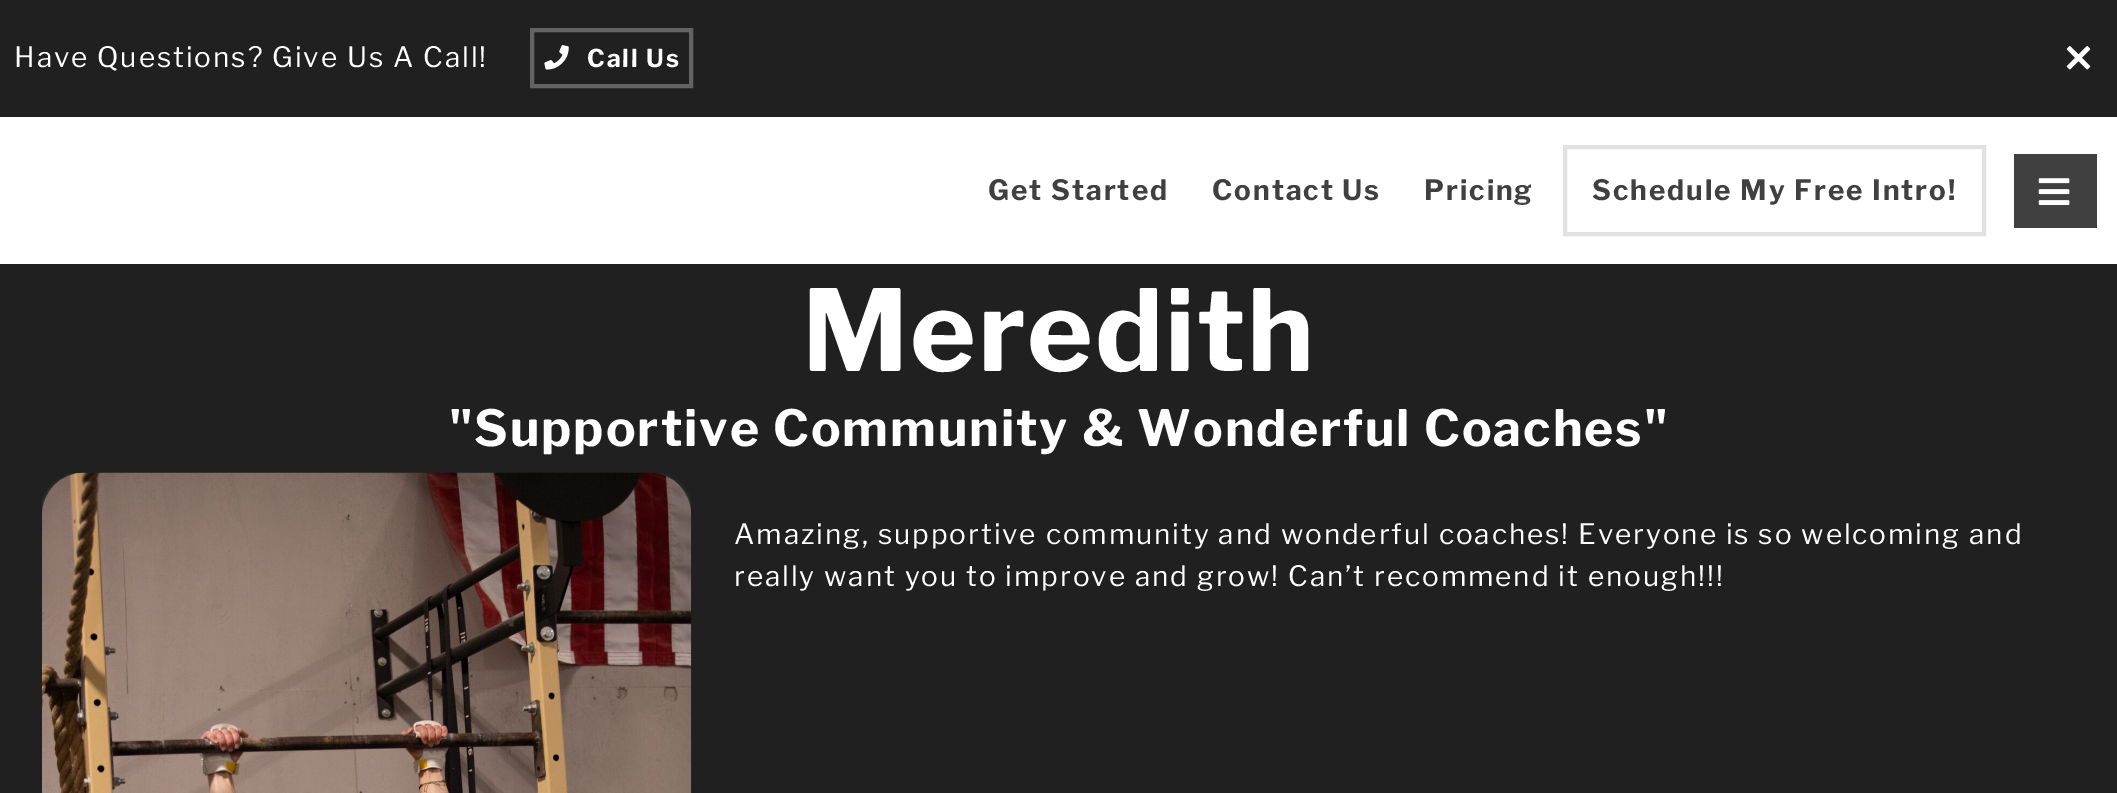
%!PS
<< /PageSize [2117 793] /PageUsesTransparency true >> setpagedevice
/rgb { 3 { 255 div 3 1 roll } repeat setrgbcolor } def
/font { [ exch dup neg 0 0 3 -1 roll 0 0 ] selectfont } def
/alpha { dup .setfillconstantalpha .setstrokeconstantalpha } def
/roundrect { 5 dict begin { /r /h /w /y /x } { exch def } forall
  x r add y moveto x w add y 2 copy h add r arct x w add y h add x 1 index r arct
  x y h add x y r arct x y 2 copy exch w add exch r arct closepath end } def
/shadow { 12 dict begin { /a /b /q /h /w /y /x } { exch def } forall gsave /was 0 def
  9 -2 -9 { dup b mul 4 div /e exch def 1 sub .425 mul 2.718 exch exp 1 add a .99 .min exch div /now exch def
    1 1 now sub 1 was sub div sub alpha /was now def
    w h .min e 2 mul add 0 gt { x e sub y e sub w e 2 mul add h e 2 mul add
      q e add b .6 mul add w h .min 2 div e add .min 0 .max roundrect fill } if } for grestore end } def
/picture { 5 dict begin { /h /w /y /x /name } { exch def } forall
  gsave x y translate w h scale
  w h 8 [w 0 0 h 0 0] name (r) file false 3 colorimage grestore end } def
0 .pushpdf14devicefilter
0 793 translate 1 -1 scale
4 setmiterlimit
32 32 32 rgb
0 0 2117 793 rectfill
99 99 99 rgb
4 setlinewidth
532 30 159 56 rectstroke
(img/1.rgb) 544 45 25 25 picture
(img/2.rgb) 2066 46 25 24 picture
255 255 255 rgb
0 117 2117 147 rectfill
225 225 225 rgb
1565 147 419 87 rectstroke
64 64 64 rgb
2014 154 83 74 rectfill
(img/3.rgb) 2038 178 32 27 picture
gsave
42 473 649 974 rectclip
181 191 201 rgb
42 474 649 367 42 2 0.4 shadow
grestore
(img/4.rgb) 42 472 650 321 picture
/LibreFranklin-Regular 28 font
255 255 255 rgb
14 67 moveto 1.93 0 (Have Questions? Give Us A Call!) ashow
/LibreFranklin-Bold 24.5 font
587 67 moveto 1.93 0 (Call Us) ashow
/LibreFranklin-Bold 28 font
64 64 64 rgb
988 200 moveto 1.93 0 (Get Started) ashow
1212 200 moveto 1.93 0 (Contact Us) ashow
1424 200 moveto 1.93 0 (Pricing) ashow
1592 200 moveto 1.93 0 (Schedule My Free Intro!) ashow
/LibreFranklin-Bold 112 font
255 255 255 rgb
802 371 moveto 1.93 0 (Meredith) ashow
/LibreFranklin-Bold 49.75 font
449 446 moveto 1.93 0 ("Supportive Community & Wonderful Coaches") ashow
/LibreFranklin-Regular 28 font
734 544 moveto 1.93 0 (Amazing, supportive community and wonderful coaches! Everyone is so welcoming and) ashow
734 586 moveto 1.93 0 (really want you to improve and grow! Can’t recommend it enough!!!) ashow
.poppdf14devicefilter showpage
